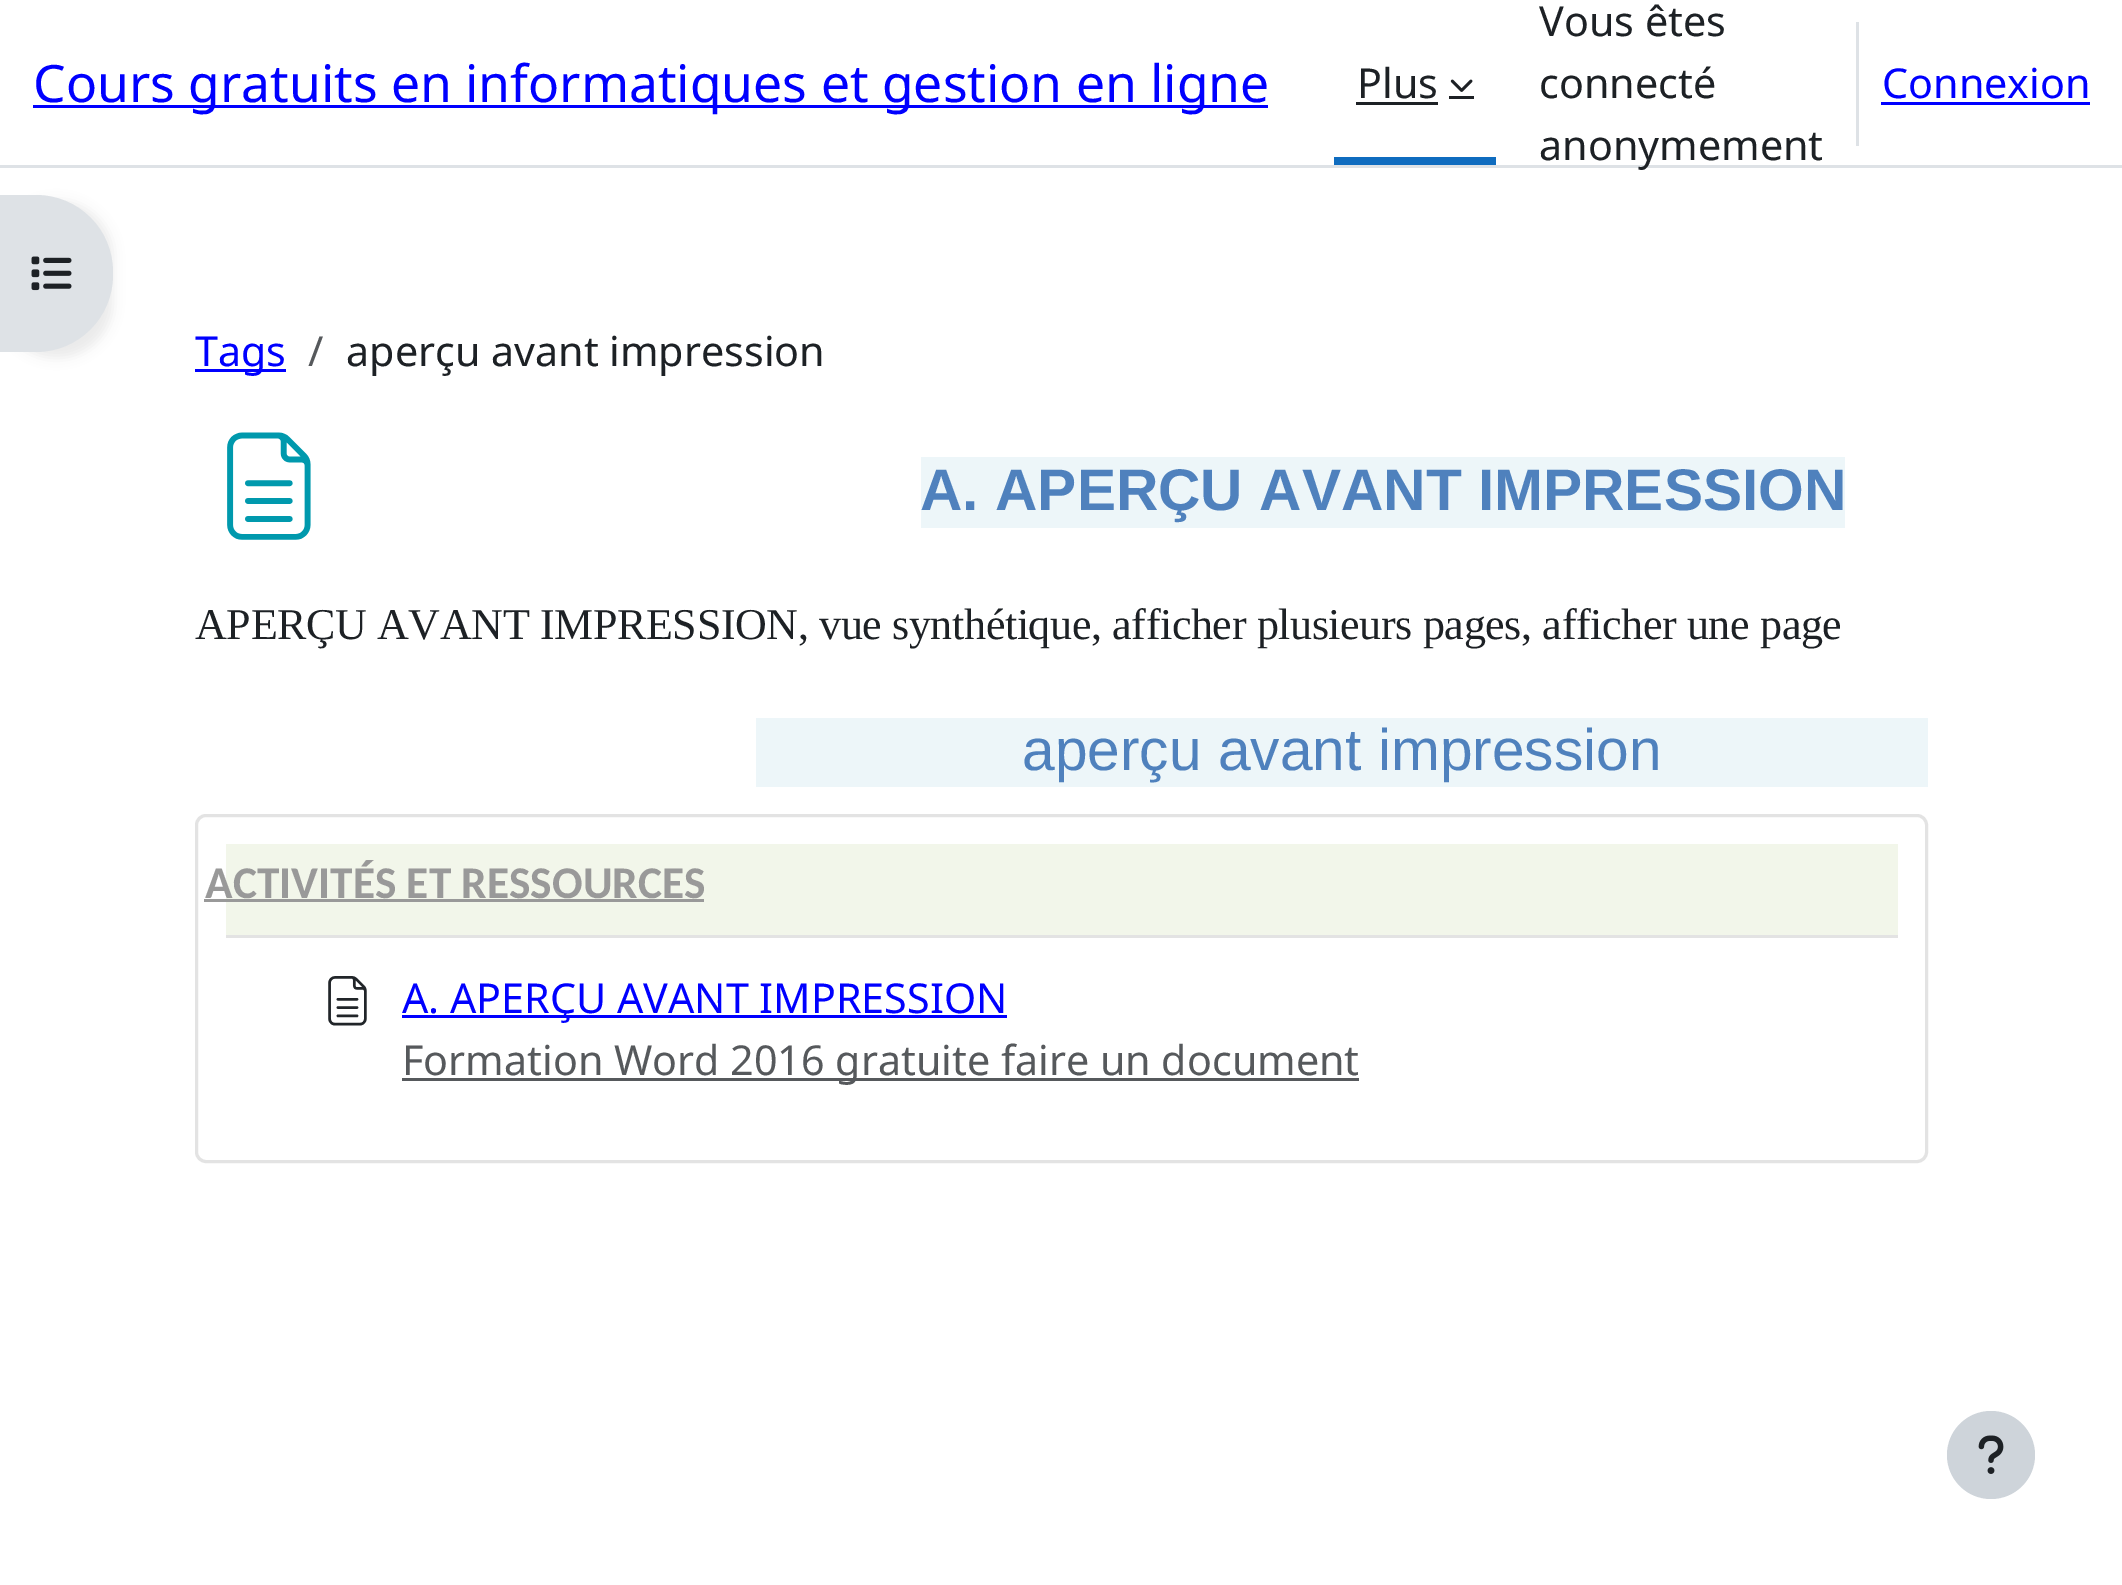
%!PS
<< /PageSize [2122 1585] /PageUsesTransparency true >> setpagedevice
/rgb { 3 { 255 div 3 1 roll } repeat setrgbcolor } def
/font { [ exch dup neg 0 0 3 -1 roll 0 0 ] selectfont } def
/alpha { dup .setfillconstantalpha .setstrokeconstantalpha } def
/circle { newpath 0 360 arc closepath } def
/roundrect { 5 dict begin { /r /h /w /y /x } { exch def } forall
  x r add y moveto x w add y 2 copy h add r arct x w add y h add x 1 index r arct
  x y h add x y r arct x y 2 copy exch w add exch r arct closepath end } def
/shadow { 12 dict begin { /a /b /q /h /w /y /x } { exch def } forall gsave /was 0 def
  9 -2 -9 { dup b mul 4 div /e exch def 1 sub .425 mul 2.718 exch exp 1 add a .99 .min exch div /now exch def
    1 1 now sub 1 was sub div sub alpha /was now def
    w h .min e 2 mul add 0 gt { x e sub y e sub w e 2 mul add h e 2 mul add
      q e add b .6 mul add w h .min 2 div e add .min 0 .max roundrect fill } if } for grestore end } def
/picture { 5 dict begin { /h /w /y /x /name } { exch def } forall
  gsave x y translate w h scale
  w h 8 [w 0 0 h 0 0] name (r) file false 3 colorimage grestore end } def
0 .pushpdf14devicefilter
0 1585 translate 1 -1 scale
4 setmiterlimit
255 255 255 rgb
0 0 2122 1585 rectfill
[
  [0 165 2122 3 222 226 230]
  [33 105 1235 3 0 0 255]
  [1334 157 162 8 15 108 191]
  [1356 102 82 3 29 33 37]
  [1449 96 25 3 29 33 37]
] { aload pop rgb rectfill } forall
(img/1.rgb) 1450 79 23 13 picture
222 226 230 rgb
1856 22 3 124 rectfill
0 0 255 rgb
1881 102 209 3 rectfill
0 0 0 rgb
0 201 113 157 77 5.5 0.07 shadow
222 226 230 rgb
0 195 moveto 36 195 lineto 78.5 195 113 229.5 113 272 curveto 113 275 lineto 113 317.5 78.5 352 36 352 curveto 0 352 lineto closepath fill
(img/2.rgb) 31 256 41 35 picture
0 0 255 rgb
195 369 91 3 rectfill
(img/3.rgb) 227 432 84 108 picture
237 246 249 rgb
921 457 924 71 rectfill
756 718 1172 69 rectfill
227 227 227 rgb
3 setlinewidth
196.5 815.5 1730 346 9.5 roundrect stroke
[
  [226 844 1672 91 242 246 234]
  [226 935 1672 3 227 227 227]
  [204 899 500 3 153 153 153]
] { aload pop rgb rectfill } forall
(img/4.rgb) 328 976 39 50 picture
0 0 255 rgb
402 1015 605 3 rectfill
86 89 92 rgb
402 1078 957 3 rectfill
206 212 218 rgb
1991 1455 44 circle fill
(img/5.rgb) 1978 1435 26 39 picture
/NotoSans-Regular 51.6 font
0 0 255 rgb
33 102 moveto (Cours gratuits en informatiques et gestion en ligne) show
/NotoSans-Regular 41.25 font
29 33 37 rgb
[
  [(Plus) 1357 98]
  [(Vous êtes) 1539 36]
  [(connecté) 1539 98]
] { aload pop moveto show } forall
0 0 255 rgb
1882 98 moveto (Connexion) show
29 33 37 rgb
1539 160 moveto (anonymement) show
0 0 255 rgb
195 366 moveto (Tags) show
86 89 92 rgb
308 366 moveto (/) show
29 33 37 rgb
346 366 moveto (aperçu avant impression) show
/LiberationSans-Bold 58.7 font
79 129 189 rgb
920 510 moveto (A. APERÇU AVANT IMPRESSION) show
/LiberationSerif-Regular 44 font
29 33 37 rgb
195 639 moveto -0.37 0 (APERÇU AVANT IMPRESSION, vue synthétique, afficher plusieurs pages, afficher une page) ashow
/LiberationSans-Regular 58.7 font
79 129 189 rgb
1022 770 moveto (aperçu avant impression) show
/Carlito-Bold 45.4 font
153 153 153 rgb
205 898 moveto (ACTIVITÉS ET RESSOURCES) show
/NotoSans-Regular 41.25 font
0 0 255 rgb
402 1013 moveto (A. APERÇU AVANT IMPRESSION) show
86 89 92 rgb
402 1075 moveto (Formation Word 2016 gratuite faire un document) show
.poppdf14devicefilter showpage
